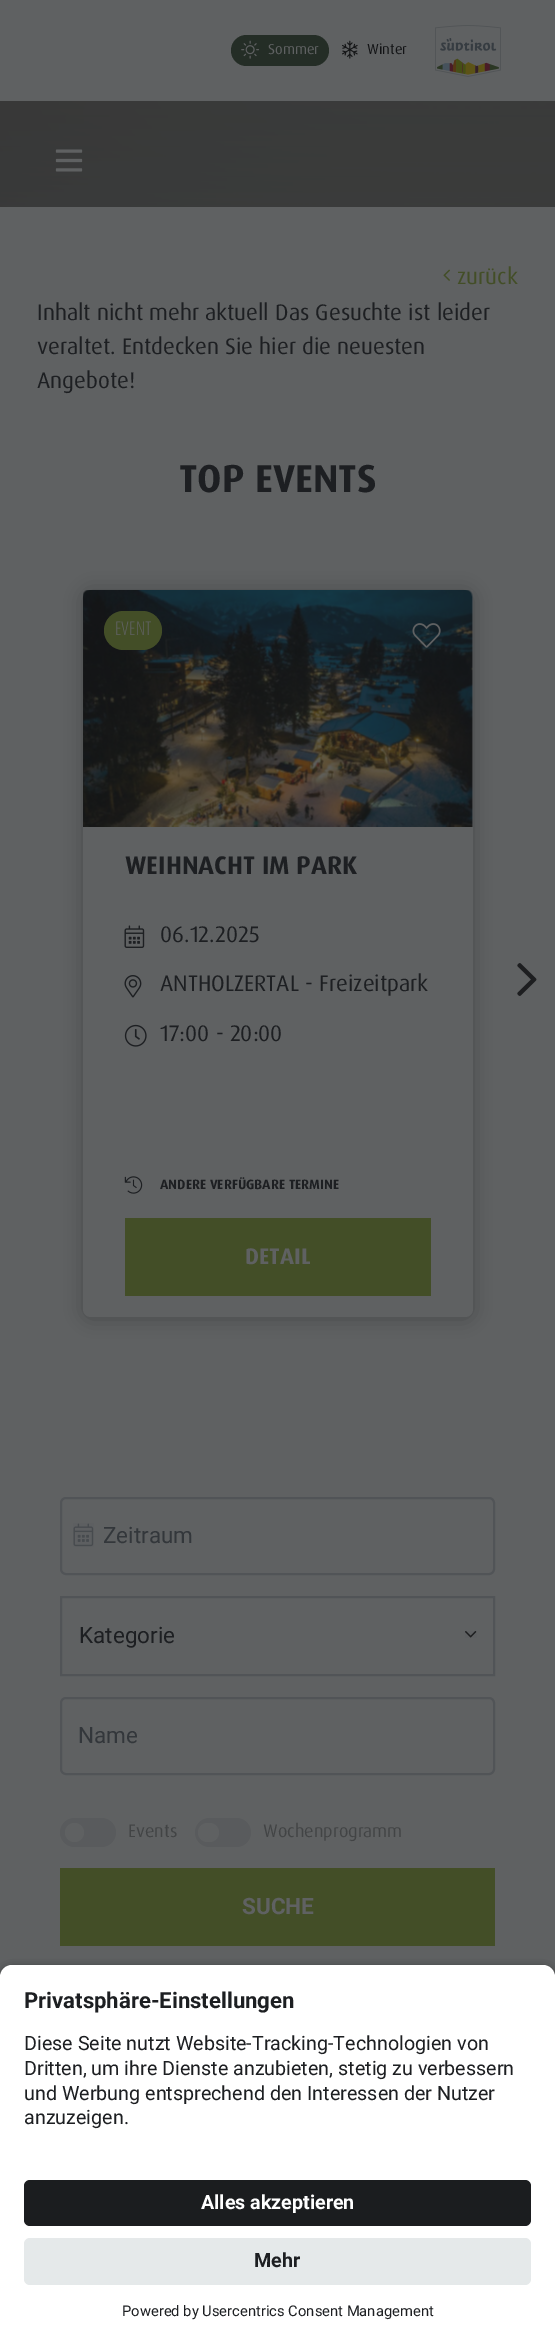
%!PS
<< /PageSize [555 2343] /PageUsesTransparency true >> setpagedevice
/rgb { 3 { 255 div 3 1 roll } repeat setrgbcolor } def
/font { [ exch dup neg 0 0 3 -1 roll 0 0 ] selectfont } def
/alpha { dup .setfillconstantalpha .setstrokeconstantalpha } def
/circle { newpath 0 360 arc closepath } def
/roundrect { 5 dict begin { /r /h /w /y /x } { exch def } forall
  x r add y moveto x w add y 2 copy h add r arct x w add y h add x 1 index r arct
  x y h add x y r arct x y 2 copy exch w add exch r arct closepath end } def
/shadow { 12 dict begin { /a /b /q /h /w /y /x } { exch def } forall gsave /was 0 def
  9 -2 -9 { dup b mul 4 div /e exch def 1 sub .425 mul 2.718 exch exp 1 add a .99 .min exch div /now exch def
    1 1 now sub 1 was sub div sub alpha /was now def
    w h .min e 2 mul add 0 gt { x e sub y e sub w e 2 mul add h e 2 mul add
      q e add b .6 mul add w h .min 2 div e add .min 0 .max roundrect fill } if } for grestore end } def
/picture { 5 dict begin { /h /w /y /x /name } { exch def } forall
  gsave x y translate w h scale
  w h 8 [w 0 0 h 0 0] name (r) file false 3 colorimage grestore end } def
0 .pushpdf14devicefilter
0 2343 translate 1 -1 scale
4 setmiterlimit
95 97 98 rgb
0 0 555 2343 rectfill
36 45 38 rgb
231 35 98 31 15.5 roundrect fill
(img/1.rgb) 241 40 19 19 picture
(img/2.rgb) 342 40 16 19 picture
(img/3.rgb) 435 25 66 52 picture
(img/4.rgb) 0 101 555 106 picture
(img/5.rgb) 55 149 28 23 picture
(img/6.rgb) 443 269 7 12 picture
19 20 22 rgb
83 591 390 728 8 9 0.3 shadow
95 97 98 rgb
83 590 390 727 8 roundrect fill
(img/7.rgb) 83 590 390 237 picture
67 78 39 rgb
104 611 58 39 19.5 roundrect fill
(img/8.rgb) 412 623 29 25 picture
(img/9.rgb) 124 925 21 23 picture
(img/10.rgb) 124 975 18 23 picture
(img/11.rgb) 124 1024 23 23 picture
(img/12.rgb) 124 1176 19 18 picture
125 1218 306 78 rectfill
(img/13.rgb) 517 963 20 33 picture
81 84 87 rgb
2 setlinewidth
61 1498 433 76 5 roundrect stroke
(img/14.rgb) 73 1523 21 24 picture
61 1597 433 78 rectstroke
(img/15.rgb) 465 1631 12 7 picture
61 1698 433 76 5 roundrect stroke
89 91 93 rgb
60 1818 56 29 14.5 roundrect fill
95 97 98 rgb
74.5 1832.5 9.5 circle fill
89 91 93 rgb
195 1818 56 29 14.5 roundrect fill
95 97 98 rgb
198 1823 21 19 9.5 roundrect fill
67 78 39 rgb
60 1868 435 78 rectfill
0 0 0 rgb
0 1970 555 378 12 5 0.8 shadow
255 255 255 rgb
12 1965 moveto 543 1965 lineto 549.5 1965 555 1970.5 555 1977 curveto 555 2162 lineto 0 2162 lineto 0 1977 lineto 0 1970.5 5.5 1965 12 1965 curveto closepath fill
0 2162 555 181 rectfill
27 29 31 rgb
24 2180 507 46 6 roundrect fill
229 233 234 rgb
24 2238 507 47 6 roundrect fill
/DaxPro-Regular 14.5 font
95 97 98 rgb
268 54 moveto (Sommer) show
19 20 22 rgb
367 54 moveto (Winter) show
/DaxPro-Regular 22.5 font
67 78 39 rgb
457 284 moveto (zurück) show
29 31 34 rgb
[
  [(Inhalt nicht mehr aktuell Das Gesuchte ist leider) 37 320]
  [(veraltet. Entdecken Sie hier die neuesten) 37 354]
  [(Angebote!) 37 388]
] { aload pop moveto show } forall
/DaxPro-Bold 39 font
179 492 moveto (TOP EVENTS) show
/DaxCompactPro-Light 16 font
95 97 98 rgb
115 635 moveto (EVENT) show
/DaxPro-Bold 25.5 font
29 31 34 rgb
125 874 moveto (WEIHNACHT IM PARK) show
/DaxPro-Regular 22.5 font
[
  [(06.12.2025) 160 942]
  [(ANTHOLZERTAL - Freizeitpark) 160 991]
  [(17:00 - 20:00) 160 1041]
] { aload pop moveto show } forall
/DaxPro-Bold 13.5 font
160 1189 moveto (ANDERE VERFÜGBARE TERMINE) show
/DaxPro-Bold 22.5 font
95 97 98 rgb
245 1264 moveto (DETAIL) show
/Roboto-Regular 22.5 font
51 55 59 rgb
103 1543 moveto (Zeitraum) show
29 31 34 rgb
79 1643 moveto (Kategorie) show
51 55 59 rgb
78 1743 moveto (Name) show
/DaxPro-Regular 18 font
66 68 69 rgb
128 1837 moveto (Events) show
263 1837 moveto (Wochenprogramm) show
/Roboto-Bold 22.5 font
95 97 98 rgb
242 1914 moveto (SUCHE) show
/Roboto-Bold 22.1 font
29 31 34 rgb
24 2008 moveto (Privatsphäre-Einstellungen) show
/Roboto-Regular 19.7 font
[
  [(Diese Seite nutzt Website-Tracking-Technologien von) 24 2050]
  [(Dritten, um ihre Dienste anzubieten, stetig zu verbessern) 24 2075]
  [(und Werbung entsprechend den Interessen der Nutzer) 24 2100]
  [(anzuzeigen.) 24 2124]
] { aload pop moveto show } forall
/Roboto-Bold 19.7 font
255 255 255 rgb
201 2209 moveto (Alles akzeptieren) show
29 31 34 rgb
254 2267 moveto (Mehr) show
/Roboto-Regular 14.75 font
122 2316 moveto (Powered by Usercentrics Consent Management) show
.poppdf14devicefilter showpage
